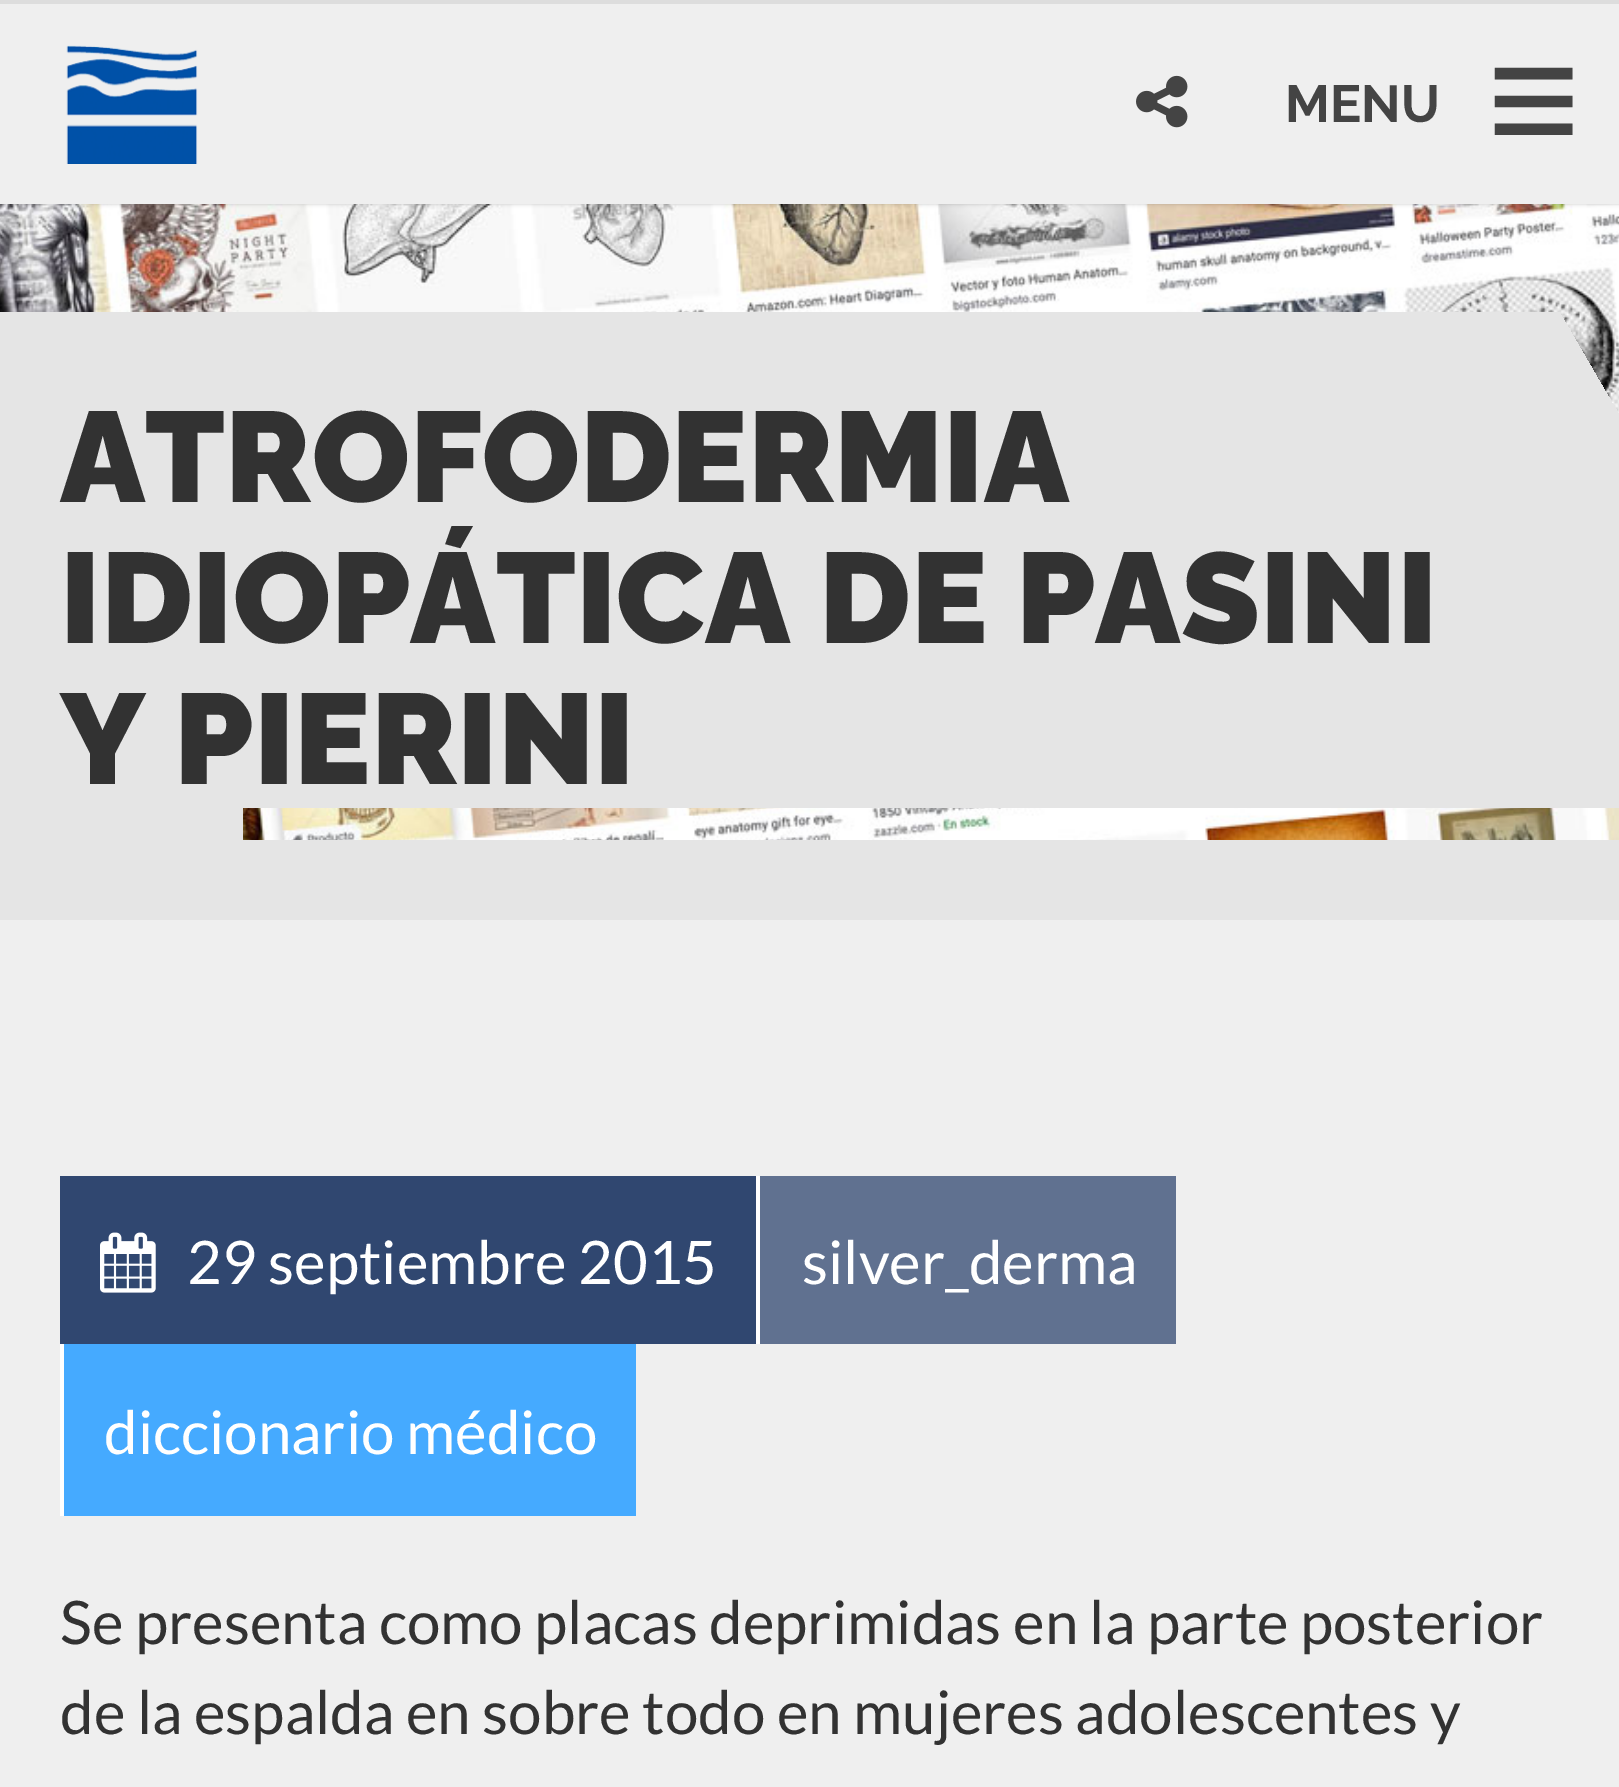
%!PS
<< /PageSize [1619 1787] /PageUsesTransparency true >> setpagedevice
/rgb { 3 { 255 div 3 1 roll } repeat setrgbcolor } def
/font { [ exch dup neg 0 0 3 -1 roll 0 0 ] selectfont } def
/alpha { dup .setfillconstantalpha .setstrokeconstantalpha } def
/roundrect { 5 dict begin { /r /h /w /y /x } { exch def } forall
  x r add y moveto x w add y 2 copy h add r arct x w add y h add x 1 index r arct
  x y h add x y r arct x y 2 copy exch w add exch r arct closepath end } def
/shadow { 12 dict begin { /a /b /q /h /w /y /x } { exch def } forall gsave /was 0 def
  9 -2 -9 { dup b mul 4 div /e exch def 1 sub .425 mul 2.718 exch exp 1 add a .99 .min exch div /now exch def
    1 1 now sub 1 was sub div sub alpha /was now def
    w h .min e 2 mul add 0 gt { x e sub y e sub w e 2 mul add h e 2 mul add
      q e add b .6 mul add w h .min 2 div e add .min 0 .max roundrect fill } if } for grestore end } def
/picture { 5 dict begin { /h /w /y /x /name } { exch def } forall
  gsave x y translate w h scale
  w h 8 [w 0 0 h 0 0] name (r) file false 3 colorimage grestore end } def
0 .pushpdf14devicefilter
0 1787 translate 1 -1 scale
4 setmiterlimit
239 239 239 rgb
0 0 1619 1787 rectfill
(img/3.rgb) 0 204 1619 636 picture
0 0 0 rgb
0 0 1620 204 0 2 0.2 shadow
239 239 239 rgb
0 4 1619 200 rectfill
221 221 221 rgb
0 0 1619 4 rectfill
(img/1.rgb) 66 45 132 119 picture
(img/2.rgb) 1136 75 52 53 picture
[
  [243 312 1317 496 229 229 229]
  [0 840 1619 80 229 229 229]
  [60 1176 696 168 48 71 112]
] { aload pop rgb rectfill } forall
(img/4.rgb) 100 1232 56 61 picture
[
  [760 1176 416 168 96 113 144]
  [756 1176 4 168 255 255 255]
  [64 1344 572 172 69 170 255]
  [60 1344 4 172 255 255 255]
] { aload pop rgb rectfill } forall
/Raleway-Bold 52 font
68 68 68 rgb
1285 122 moveto (MENU) show
/LiberationSans-Bold 160 font
1487 154 moveto (≡) show
/Raleway-Black 128 font
50 50 50 rgb
[
  [(ATROFODERMIA) 60 502]
  [(IDIOPÁTICA DE PASINI) 60 643]
  [(Y PIERINI) 60 784]
] { aload pop moveto show } forall
/Lato-Regular 60 font
255 255 255 rgb
[
  [(29 septiembre 2015) 187 1284]
  [(silver_derma) 802 1284]
  [(diccionario médico) 104 1454]
] { aload pop moveto show } forall
50 50 50 rgb
60 1644 moveto (Se presenta como placas deprimidas en la parte posterior) show
60 1734 moveto (de la espalda en sobre todo en mujeres adolescentes y) show
.poppdf14devicefilter showpage
